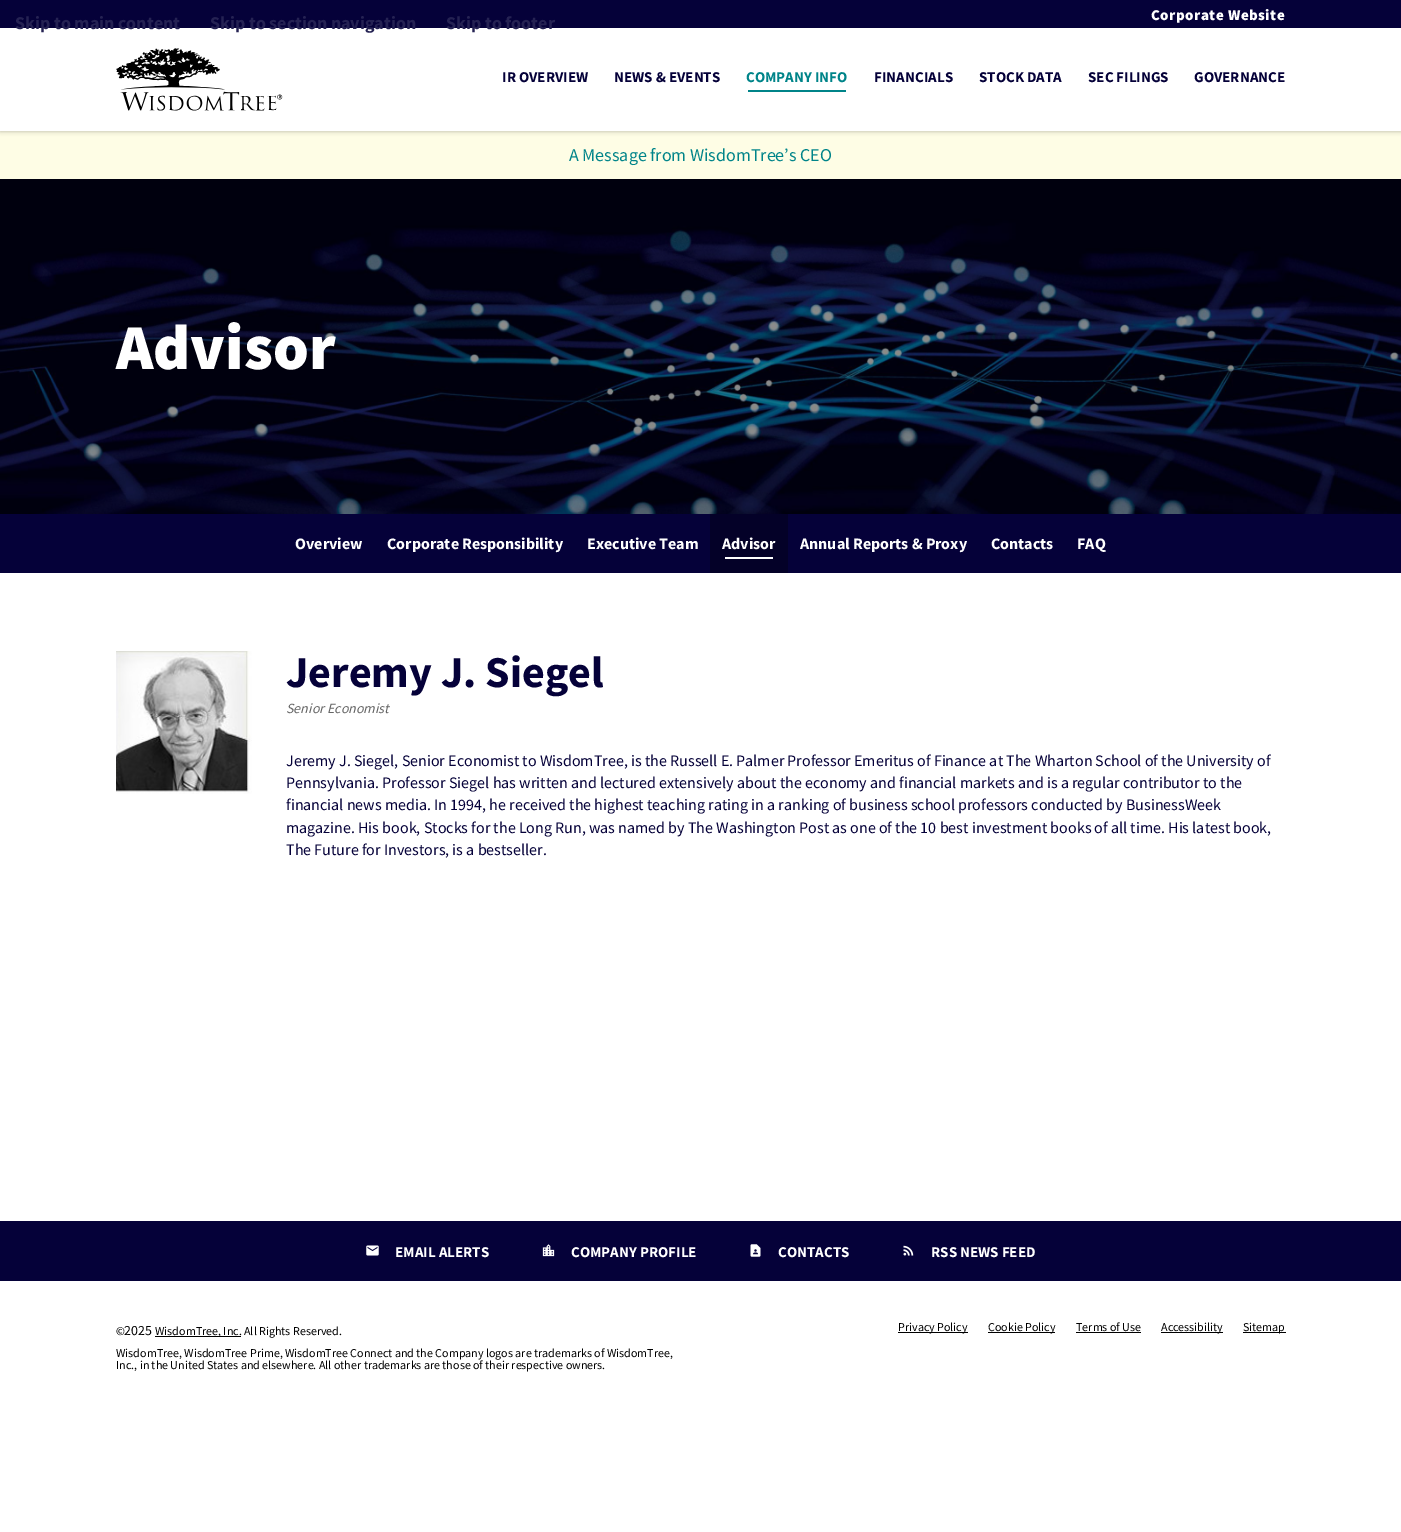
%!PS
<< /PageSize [1401 1532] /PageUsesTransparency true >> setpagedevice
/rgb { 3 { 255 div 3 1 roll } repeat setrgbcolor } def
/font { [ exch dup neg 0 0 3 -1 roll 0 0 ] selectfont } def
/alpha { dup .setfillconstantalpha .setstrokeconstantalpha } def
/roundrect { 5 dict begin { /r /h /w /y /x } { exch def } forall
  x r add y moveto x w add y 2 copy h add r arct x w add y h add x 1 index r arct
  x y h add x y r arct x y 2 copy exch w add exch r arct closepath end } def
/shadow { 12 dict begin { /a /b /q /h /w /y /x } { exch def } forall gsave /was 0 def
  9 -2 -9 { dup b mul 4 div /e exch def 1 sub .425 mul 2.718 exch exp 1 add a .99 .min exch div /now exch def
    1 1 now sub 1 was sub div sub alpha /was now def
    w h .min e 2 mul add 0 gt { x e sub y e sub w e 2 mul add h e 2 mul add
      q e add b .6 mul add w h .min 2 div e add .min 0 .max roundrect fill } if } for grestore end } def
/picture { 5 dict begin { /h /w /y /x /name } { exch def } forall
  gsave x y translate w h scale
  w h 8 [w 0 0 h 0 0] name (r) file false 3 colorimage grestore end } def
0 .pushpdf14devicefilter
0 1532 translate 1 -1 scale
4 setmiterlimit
255 255 255 rgb
0 0 1401 1532 rectfill
254 253 229 rgb
0 131 1401 48 rectfill
0 0 0 rgb
0 0 1401 131 0 2.5 0.3 shadow
255 255 255 rgb
0 28 1401 103 rectfill
5 1 57 rgb
0 0 1401 28 rectfill
(img/1.rgb) 116 48 167 63 picture
0 132 137 rgb
748 90 98 2 rectfill
(img/2.rgb) 0 179 1401 335 picture
[
  [0 514 1401 59 5 1 57]
  [710 514 78 59 4 1 40]
  [725 557 48 2 255 255 255]
] { aload pop rgb rectfill } forall
(img/3.rgb) 116 651 136 143 picture
5 1 57 rgb
0 1221 1401 60 rectfill
(img/4.rgb) 366 1245 13 11 picture
(img/5.rgb) 542 1244 13 13 picture
(img/6.rgb) 750 1244 11 13 picture
(img/7.rgb) 903 1245 11 11 picture
[
  [155 1336 86 1 0 0 0]
  [898 1332 70 1 0 0 0]
  [988 1332 67 1 0 0 0]
  [1076 1332 65 1 0 0 0]
  [1161 1332 62 1 0 0 0]
  [1243 1332 43 1 0 0 0]
] { aload pop rgb rectfill } forall
/SourceSansPro-Bold 18 font
37 34 83 rgb
[
  [(Skip to main content) 15 29]
  [(Skip to section navigation) 210 29]
  [(Skip to footer) 446 29]
] { aload pop moveto show } forall
/SourceSansPro-Black 15 font
255 255 255 rgb
1151 20 moveto 0.5 0 (Corporate Website) ashow
/SourceSansPro-Bold 15 font
5 1 57 rgb
502 82 moveto (IR OVERVIEW) show
614 82 moveto (NEWS & EVENTS) show
0 132 137 rgb
746 82 moveto (COMPANY INFO) show
5 1 57 rgb
[
  [(FINANCIALS) 874 82]
  [(STOCK DATA) 979 82]
  [(SEC FILINGS) 1088 82]
  [(GOVERNANCE) 1194 82]
] { aload pop moveto show } forall
/SourceSansPro-Regular 18 font
0 132 137 rgb
569 161 moveto (A Message from WisdomTree’s CEO) show
/SourceSansPro-Black 64 font
255 255 255 rgb
116 369 moveto (Advisor) show
/SourceSansPro-Bold 16 font
[
  [(Overview) 295 549]
  [(Corporate Responsibility) 387 549]
  [(Executive Team) 587 549]
  [(Advisor) 722 549]
  [(Annual Reports & Proxy) 800 549]
  [(Contacts) 991 549]
  [(FAQ) 1077 549]
] { aload pop moveto show } forall
/SourceSansPro-Bold 44 font
5 1 57 rgb
286 687 moveto (Jeremy J. Siegel) show
/SourceSansPro-Italic 14 font
102 102 102 rgb
286 713 moveto (Senior Economist) show
/SourceSansPro-Regular 16 font
5 1 57 rgb
[
  [(Jeremy J. Siegel, Senior Economist to WisdomTree, is the Russell E. Palmer Professor Emeritus of Finance at The Wharton School of the University of) 286 766]
  [(Pennsylvania. Professor Siegel has written and lectured extensively about the economy and financial markets and is a regular contributor to the) 286 788]
  [(financial news media. In 1994, he received the highest teaching rating in a ranking of business school professors conducted by BusinessWeek) 286 810]
  [(magazine. His book, Stocks for the Long Run, was named by The Washington Post as one of the 10 best investment books of all time. His latest book,) 286 833]
  [(The Future for Investors, is a bestseller.) 286 855]
] { aload pop moveto show } forall
/SourceSansPro-Bold 15 font
255 255 255 rgb
[
  [(EMAIL ALERTS) 395 1257]
  [(COMPANY PROFILE) 571 1257]
  [(CONTACTS) 778 1257]
  [(RSS NEWS FEED) 931 1257]
] { aload pop moveto show } forall
/SourceSansPro-Regular 12 font
0 0 0 rgb
116 1335 moveto (©) show
/SourceSansPro-Regular 14 font
124 1335 moveto (2025) show
/SourceSansPro-Regular 12 font
[
  [(WisdomTree, Inc. All Rights Reserved.) 155 1335]
  [(WisdomTree, WisdomTree Prime, WisdomTree Connect and the Company logos are trademarks of WisdomTree,) 116 1357]
  [(Inc., in the United States and elsewhere. All other trademarks are those of their respective owners.) 116 1369]
  [(Privacy Policy) 898 1331]
  [(Cookie Policy) 988 1331]
  [(Terms of Use) 1076 1331]
  [(Accessibility) 1161 1331]
  [(Sitemap) 1243 1331]
] { aload pop moveto show } forall
.poppdf14devicefilter showpage
